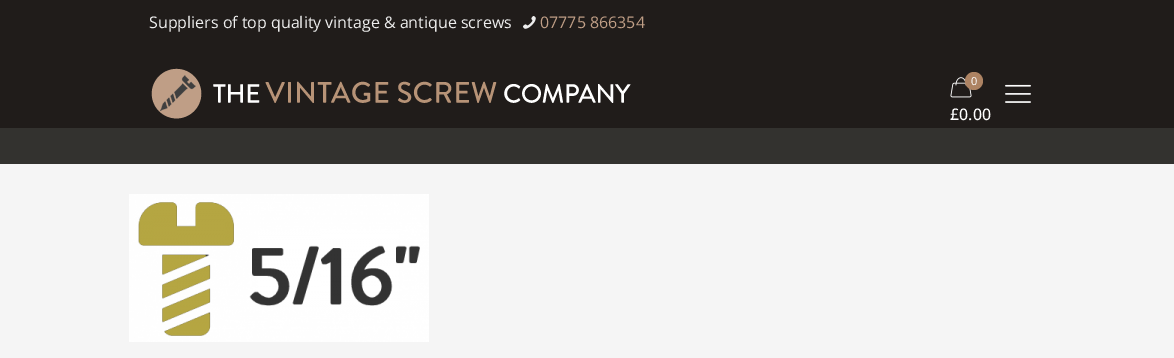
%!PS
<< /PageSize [1174 358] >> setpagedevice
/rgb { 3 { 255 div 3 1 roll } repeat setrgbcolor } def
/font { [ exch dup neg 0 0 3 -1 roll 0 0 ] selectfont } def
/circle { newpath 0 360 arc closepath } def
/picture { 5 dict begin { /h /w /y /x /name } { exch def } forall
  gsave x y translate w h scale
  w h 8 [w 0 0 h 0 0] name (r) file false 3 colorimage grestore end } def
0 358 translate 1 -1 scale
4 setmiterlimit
245 245 245 rgb
0 0 1174 358 rectfill
32 28 26 rgb
0 0 1174 128 rectfill
(img/1.rgb) 523 16 13 13 picture
(img/2.rgb) 151 68 480 51 picture
(img/3.rgb) 950 77 22 21 picture
173 131 99 rgb
974 81 9 circle fill
(img/4.rgb) 1005 84 26 19 picture
51 50 47 rgb
0 128 1174 36 rectfill
(img/5.rgb) 129 194 300 148 picture
/OpenSans-Regular 16 font
238 238 238 rgb
149 28 moveto (Suppliers of top quality vintage & antique screws) show
191 158 134 rgb
540 28 moveto (07775 866354) show
/OpenSans-Regular 11 font
255 255 255 rgb
971 85 moveto (0) show
/OpenSans-Medium 16 font
950 120 moveto (£0.00) show
showpage
